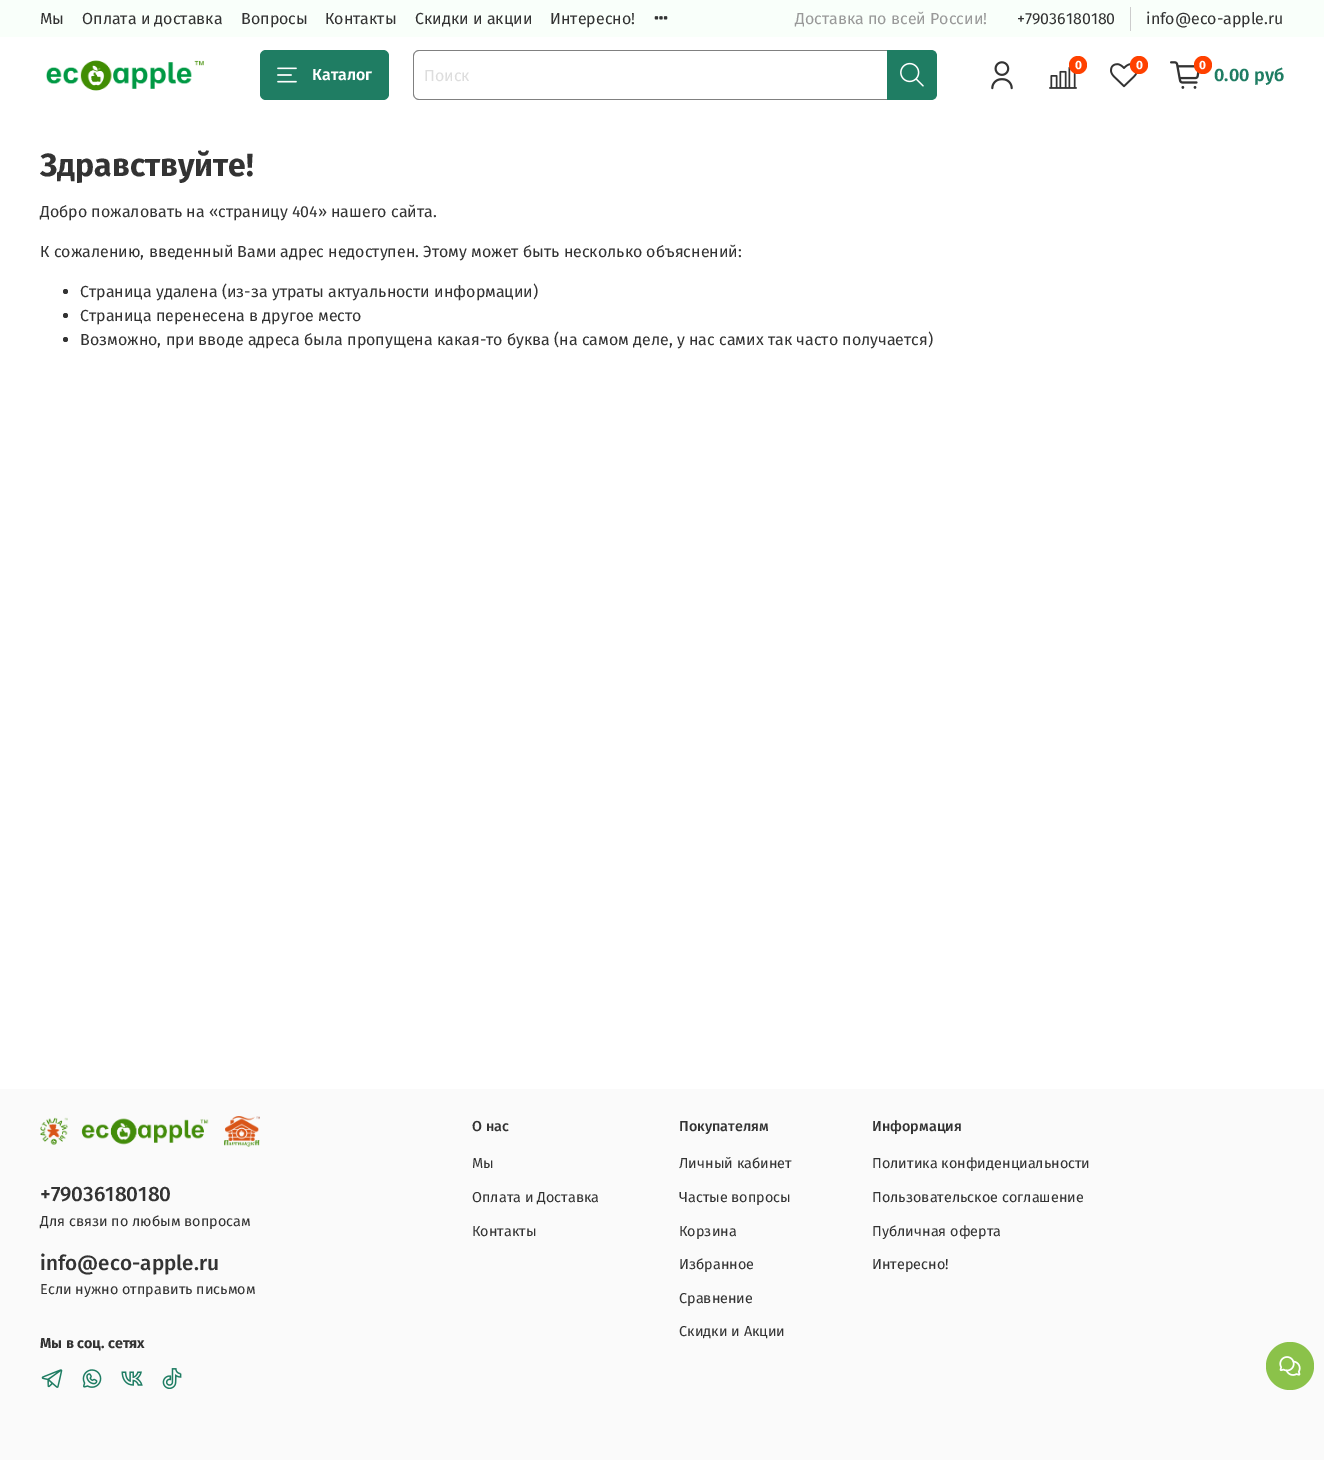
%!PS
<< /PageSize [1324 1460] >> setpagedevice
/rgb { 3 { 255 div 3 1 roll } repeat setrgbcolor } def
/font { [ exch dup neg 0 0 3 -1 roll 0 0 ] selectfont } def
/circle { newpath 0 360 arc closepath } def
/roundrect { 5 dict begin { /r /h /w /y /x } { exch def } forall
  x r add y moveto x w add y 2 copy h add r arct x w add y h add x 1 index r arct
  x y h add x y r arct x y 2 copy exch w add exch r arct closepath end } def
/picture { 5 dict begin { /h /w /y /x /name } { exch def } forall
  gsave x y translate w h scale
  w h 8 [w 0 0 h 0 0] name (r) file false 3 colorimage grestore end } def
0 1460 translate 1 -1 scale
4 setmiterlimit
255 255 255 rgb
0 0 1324 1460 rectfill
249 255 250 rgb
0 0 1324 37 rectfill
(img/1.rgb) 654 16 14 4 picture
204 204 204 rgb
1130 7 1 24 rectfill
(img/2.rgb) 46 60 158 31 picture
31 125 99 rgb
260 50 129 50 6 roundrect fill
(img/3.rgb) 277 67 20 16 picture
128 128 128 rgb
419 50 moveto 887 50 lineto 887 100 lineto 419 100 lineto 416 100 413 97 413 94 curveto 413 56 lineto 413 53 416 50 419 50 curveto closepath 419 51 moveto 887 51 lineto 887 99 lineto 419 99 lineto 416 99 414 97 414 94 curveto 414 56 lineto 414 53 416 51 419 51 curveto closepath eofill
31 125 99 rgb
887 50 moveto 931 50 lineto 934.5 50 937 52.5 937 56 curveto 937 94 lineto 937 97.5 934.5 100 931 100 curveto 887 100 lineto closepath fill
(img/4.rgb) 900 62 24 25 picture
(img/5.rgb) 991 61 22 29 picture
(img/6.rgb) 1049 66 28 23 picture
255 65 0 rgb
1078 65 9 circle fill
(img/7.rgb) 1110 63 28 25 picture
1139 65 9 circle fill
(img/8.rgb) 1170 61 30 28 picture
1203 65 9 circle fill
51 51 51 rgb
65.5 291.5 2.5 circle fill
65.5 315.5 2.5 circle fill
65.5 339.5 2.5 circle fill
250 250 250 rgb
0 1089 1324 371 rectfill
(img/9.rgb) 40 1116 220 31 picture
(img/10.rgb) 41 1369 22 19 picture
(img/11.rgb) 82 1369 20 19 picture
(img/12.rgb) 121 1371 22 15 picture
(img/13.rgb) 162 1368 20 21 picture
139 194 74 rgb
1290 1366 24 circle fill
(img/14.rgb) 1279 1356 22 20 picture
/FiraSans-Regular 16 font
51 51 51 rgb
[
  [(Мы) 40 24]
  [(Оплата и доставка) 82 24]
  [(Вопросы) 241 24]
  [(Контакты) 325 24]
  [(Скидки и акции) 415 24]
  [(Интересно!) 550 24]
] { aload pop moveto show } forall
153 153 153 rgb
795 24 moveto (Доставка по всей России!) show
51 51 51 rgb
1017 24 moveto (+79036180180) show
1146 24 moveto (info@eco-apple.ru) show
/FiraSans-SemiBold 16 font
255 255 255 rgb
312 80 moveto (Каталог) show
/FiraSans-Regular 16 font
221 221 221 rgb
424 81 moveto (Поиск) show
/FiraSans-Bold 12 font
255 255 255 rgb
[
  [(0) 1075 69]
  [(0) 1136 69]
  [(0) 1199 69]
] { aload pop moveto show } forall
/FiraSans-SemiBold 18 font
31 125 99 rgb
1214 81 moveto (0.00 руб) show
/FiraSans-Bold 32 font
51 51 51 rgb
40 176 moveto (Здравствуйте!) show
/FiraSans-Regular 16 font
[
  [(Добро пожаловать на «страницу 404» нашего сайта.) 40 217]
  [(К сожалению, введенный Вами адрес недоступен. Этому может быть несколько объяснений:) 40 257]
  [(Страница удалена \(из-за утраты актуальности информации\)) 80 297]
  [(Страница перенесена в другое место) 80 321]
  [(Возможно, при вводе адреса была пропущена какая-то буква \(на самом деле, у нас самих так часто получается\)) 80 345]
] { aload pop moveto show } forall
/FiraSans-Medium 20.75 font
40 1201 moveto (+79036180180) show
/FiraSans-Regular 14.4 font
40 1226 moveto (Для связи по любым вопросам) show
/FiraSans-Medium 20.75 font
40 1270 moveto (info@eco-apple.ru) show
/FiraSans-Regular 14.4 font
40 1294 moveto (Если нужно отправить письмом) show
/FiraSans-Bold 14.4 font
40 1348 moveto (Мы в соц. сетях) show
/FiraSans-Medium 14.4 font
472 1131 moveto (О нас) show
/FiraSans-Regular 14.4 font
[
  [(Мы) 472 1168]
  [(Оплата и Доставка) 472 1202]
  [(Контакты) 472 1236]
] { aload pop moveto show } forall
/FiraSans-Medium 14.4 font
679 1131 moveto (Покупателям) show
/FiraSans-Regular 14.4 font
[
  [(Личный кабинет) 679 1168]
  [(Частые вопросы) 679 1202]
  [(Корзина) 679 1236]
  [(Избранное) 679 1269]
  [(Сравнение) 679 1303]
  [(Скидки и Акции) 679 1336]
] { aload pop moveto show } forall
/FiraSans-Medium 14.4 font
872 1131 moveto (Информация) show
/FiraSans-Regular 14.4 font
[
  [(Политика конфиденциальности) 872 1168]
  [(Пользовательское соглашение) 872 1202]
  [(Публичная оферта) 872 1236]
  [(Интересно!) 872 1269]
] { aload pop moveto show } forall
showpage
